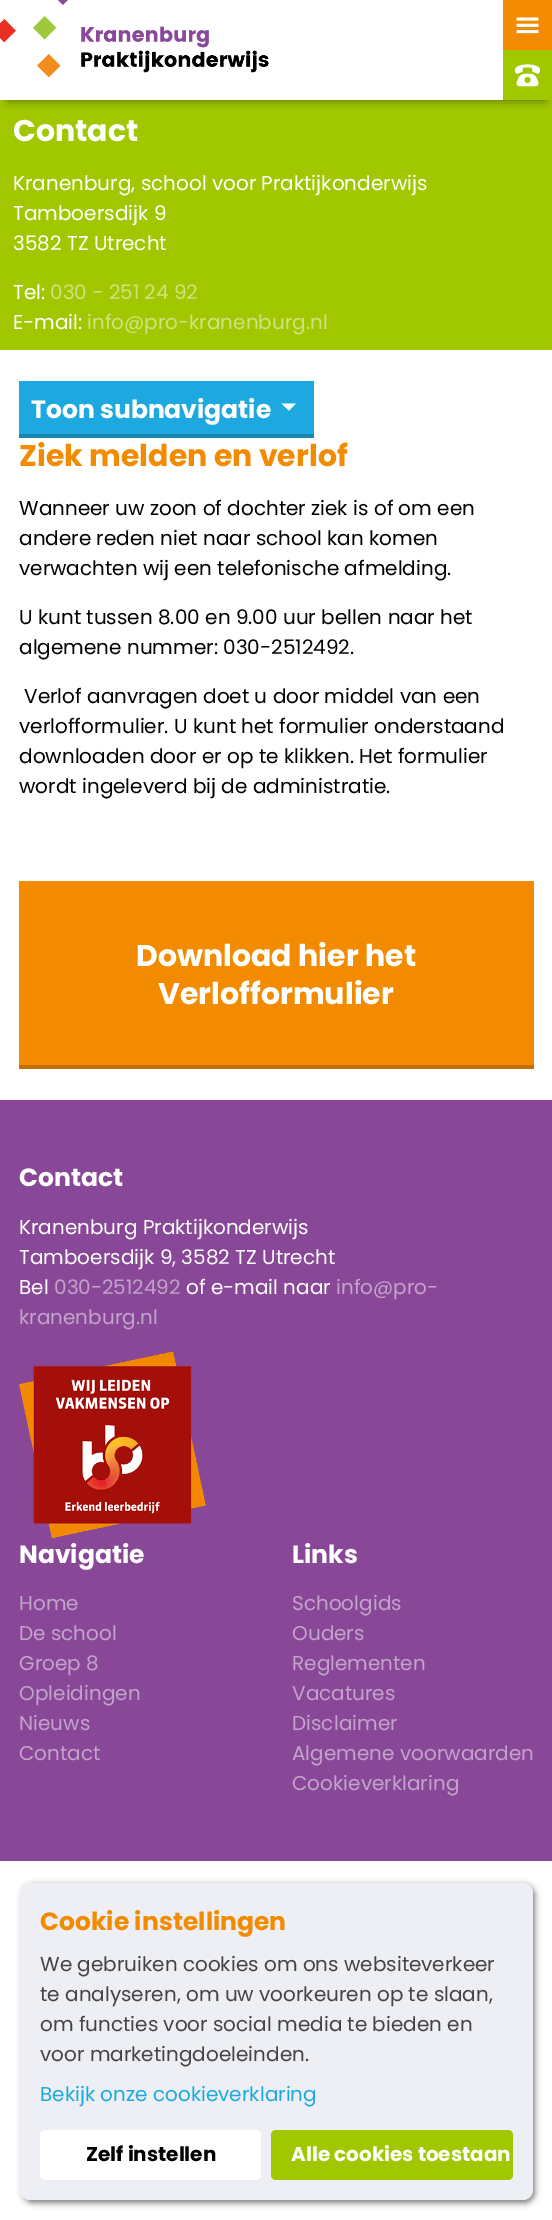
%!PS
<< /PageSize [552 2220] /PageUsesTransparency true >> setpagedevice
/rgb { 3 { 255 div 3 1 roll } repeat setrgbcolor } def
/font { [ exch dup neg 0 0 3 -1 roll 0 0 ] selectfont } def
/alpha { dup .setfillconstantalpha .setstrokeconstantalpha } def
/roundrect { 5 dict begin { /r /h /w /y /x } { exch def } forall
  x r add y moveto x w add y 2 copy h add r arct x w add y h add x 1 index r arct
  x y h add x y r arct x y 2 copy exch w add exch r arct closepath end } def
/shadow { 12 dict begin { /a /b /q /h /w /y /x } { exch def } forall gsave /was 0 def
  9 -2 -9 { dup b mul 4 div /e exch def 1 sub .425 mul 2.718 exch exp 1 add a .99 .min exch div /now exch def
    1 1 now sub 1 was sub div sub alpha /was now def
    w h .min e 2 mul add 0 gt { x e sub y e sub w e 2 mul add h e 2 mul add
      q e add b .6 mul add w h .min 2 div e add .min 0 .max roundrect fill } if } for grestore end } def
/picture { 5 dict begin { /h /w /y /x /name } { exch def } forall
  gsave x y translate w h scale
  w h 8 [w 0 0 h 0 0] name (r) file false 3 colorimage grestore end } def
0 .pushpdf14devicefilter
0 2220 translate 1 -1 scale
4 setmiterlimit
255 255 255 rgb
0 0 552 2220 rectfill
161 199 0 rgb
0 100 552 250 rectfill
gsave
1 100 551 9 rectclip
0 0 0 rgb
8 15 537 85 0 5 0.5 shadow
grestore
(img/1.rgb) 0 0 68 78 picture
(img/2.rgb) 81 26 188 47 picture
243 139 0 rgb
503 0 49 50 rectfill
(img/3.rgb) 516 17 23 17 picture
161 199 0 rgb
503 50 49 50 rectfill
(img/4.rgb) 515 64 25 23 picture
29 169 223 rgb
19 381 295 53 rectfill
255 255 255 rgb
281.5 403.5 moveto 289 410.5 lineto 296 403.5 lineto closepath fill
[
  [19 434 295 4 23 135 178]
  [19 881 515 184 243 139 0]
  [19 1065 515 4 194 111 0]
  [0 1100 552 761 136 71 151]
] { aload pop rgb rectfill } forall
(img/5.rgb) 18 1351 188 187 picture
0 0 0 rgb
23 1885 512 318 10 3 0.5 shadow
237 239 245 rgb
20 1883 513 317 10 roundrect fill
255 255 255 rgb
40 2130 221 50 5 roundrect fill
161 199 0 rgb
271 2130 242 50 5 roundrect fill
/Poppins-Bold 30 font
255 255 255 rgb
13 141 moveto (Contact) show
/Poppins-Regular 20 font
[
  [(Kranenburg, school voor Praktijkonderwijs) 13 190]
  [(Tamboersdijk 9) 13 220]
  [(3582 TZ Utrecht) 13 250]
  [(Tel:) 13 299]
] { aload pop moveto show } forall
208 227 128 rgb
50 299 moveto (030 - 251 24 92) show
255 255 255 rgb
13 329 moveto (E-mail:) show
208 227 128 rgb
87 329 moveto (info@pro-kranenburg.nl) show
/Poppins-Bold 25 font
255 255 255 rgb
31 418 moveto (Toon subnavigatie) show
/Poppins-Bold 30 font
243 139 0 rgb
19 466 moveto (Ziek melden en verlof) show
/Poppins-Regular 20 font
0 0 0 rgb
[
  [(Wanneer uw zoon of dochter ziek is of om een) 19 515]
  [(andere reden niet naar school kan komen) 19 545]
  [(verwachten wij een telefonische afmelding.) 19 575]
  [(U kunt tussen 8.00 en 9.00 uur bellen naar het) 19 624]
  [(algemene nummer: 030-2512492.) 19 654]
  [(Verlof aanvragen doet u door middel van een) 24 703]
  [(verlofformulier. U kunt het formulier onderstaand) 19 733]
  [(downloaden door er op te klikken. Het formulier) 19 763]
  [(wordt ingeleverd bij de administratie.) 19 793]
] { aload pop moveto show } forall
/Poppins-Bold 30 font
255 255 255 rgb
136 966 moveto (Download hier het) show
158 1004 moveto (Verlofformulier) show
/Poppins-Bold 25 font
19 1186 moveto (Contact) show
/Poppins-Regular 20 font
[
  [(Kranenburg Praktijkonderwijs) 19 1234]
  [(Tamboersdijk 9, 3582 TZ Utrecht) 19 1264]
  [(Bel) 19 1294]
] { aload pop moveto show } forall
196 163 203 rgb
54 1294 moveto (030-2512492) show
255 255 255 rgb
186 1294 moveto (of e-mail naar) show
196 163 203 rgb
336 1294 moveto (info@pro-) show
19 1324 moveto (kranenburg.nl) show
/Poppins-Bold 25 font
255 255 255 rgb
19 1563 moveto (Navigatie) show
/Poppins-Regular 20 font
196 163 203 rgb
[
  [(Home) 19 1610]
  [(De school) 19 1640]
  [(Groep 8) 19 1670]
  [(Opleidingen) 19 1700]
  [(Nieuws) 19 1730]
  [(Contact) 19 1760]
] { aload pop moveto show } forall
/Poppins-Bold 25 font
255 255 255 rgb
292 1563 moveto (Links) show
/Poppins-Regular 20 font
196 163 203 rgb
[
  [(Schoolgids) 292 1610]
  [(Ouders) 292 1640]
  [(Reglementen) 292 1670]
  [(Vacatures) 292 1700]
  [(Disclaimer) 292 1730]
  [(Algemene voorwaarden) 292 1760]
  [(Cookieverklaring) 292 1790]
] { aload pop moveto show } forall
/Poppins-Bold 25 font
243 139 0 rgb
40 1930 moveto (Cookie instellingen) show
/Poppins-Regular 20 font
68 68 68 rgb
[
  [(We gebruiken cookies om ons websiteverkeer) 40 1971]
  [(te analyseren, om uw voorkeuren op te slaan,) 40 2001]
  [(om functies voor social media te bieden en) 40 2031]
  [(voor marketingdoeleinden.) 40 2061]
] { aload pop moveto show } forall
29 169 223 rgb
40 2101 moveto (Bekijk onze cookieverklaring) show
/Poppins-Bold 20 font
0 0 0 rgb
86 2161 moveto (Zelf instellen) show
255 255 255 rgb
291 2161 moveto (Alle cookies toestaan) show
.poppdf14devicefilter showpage
